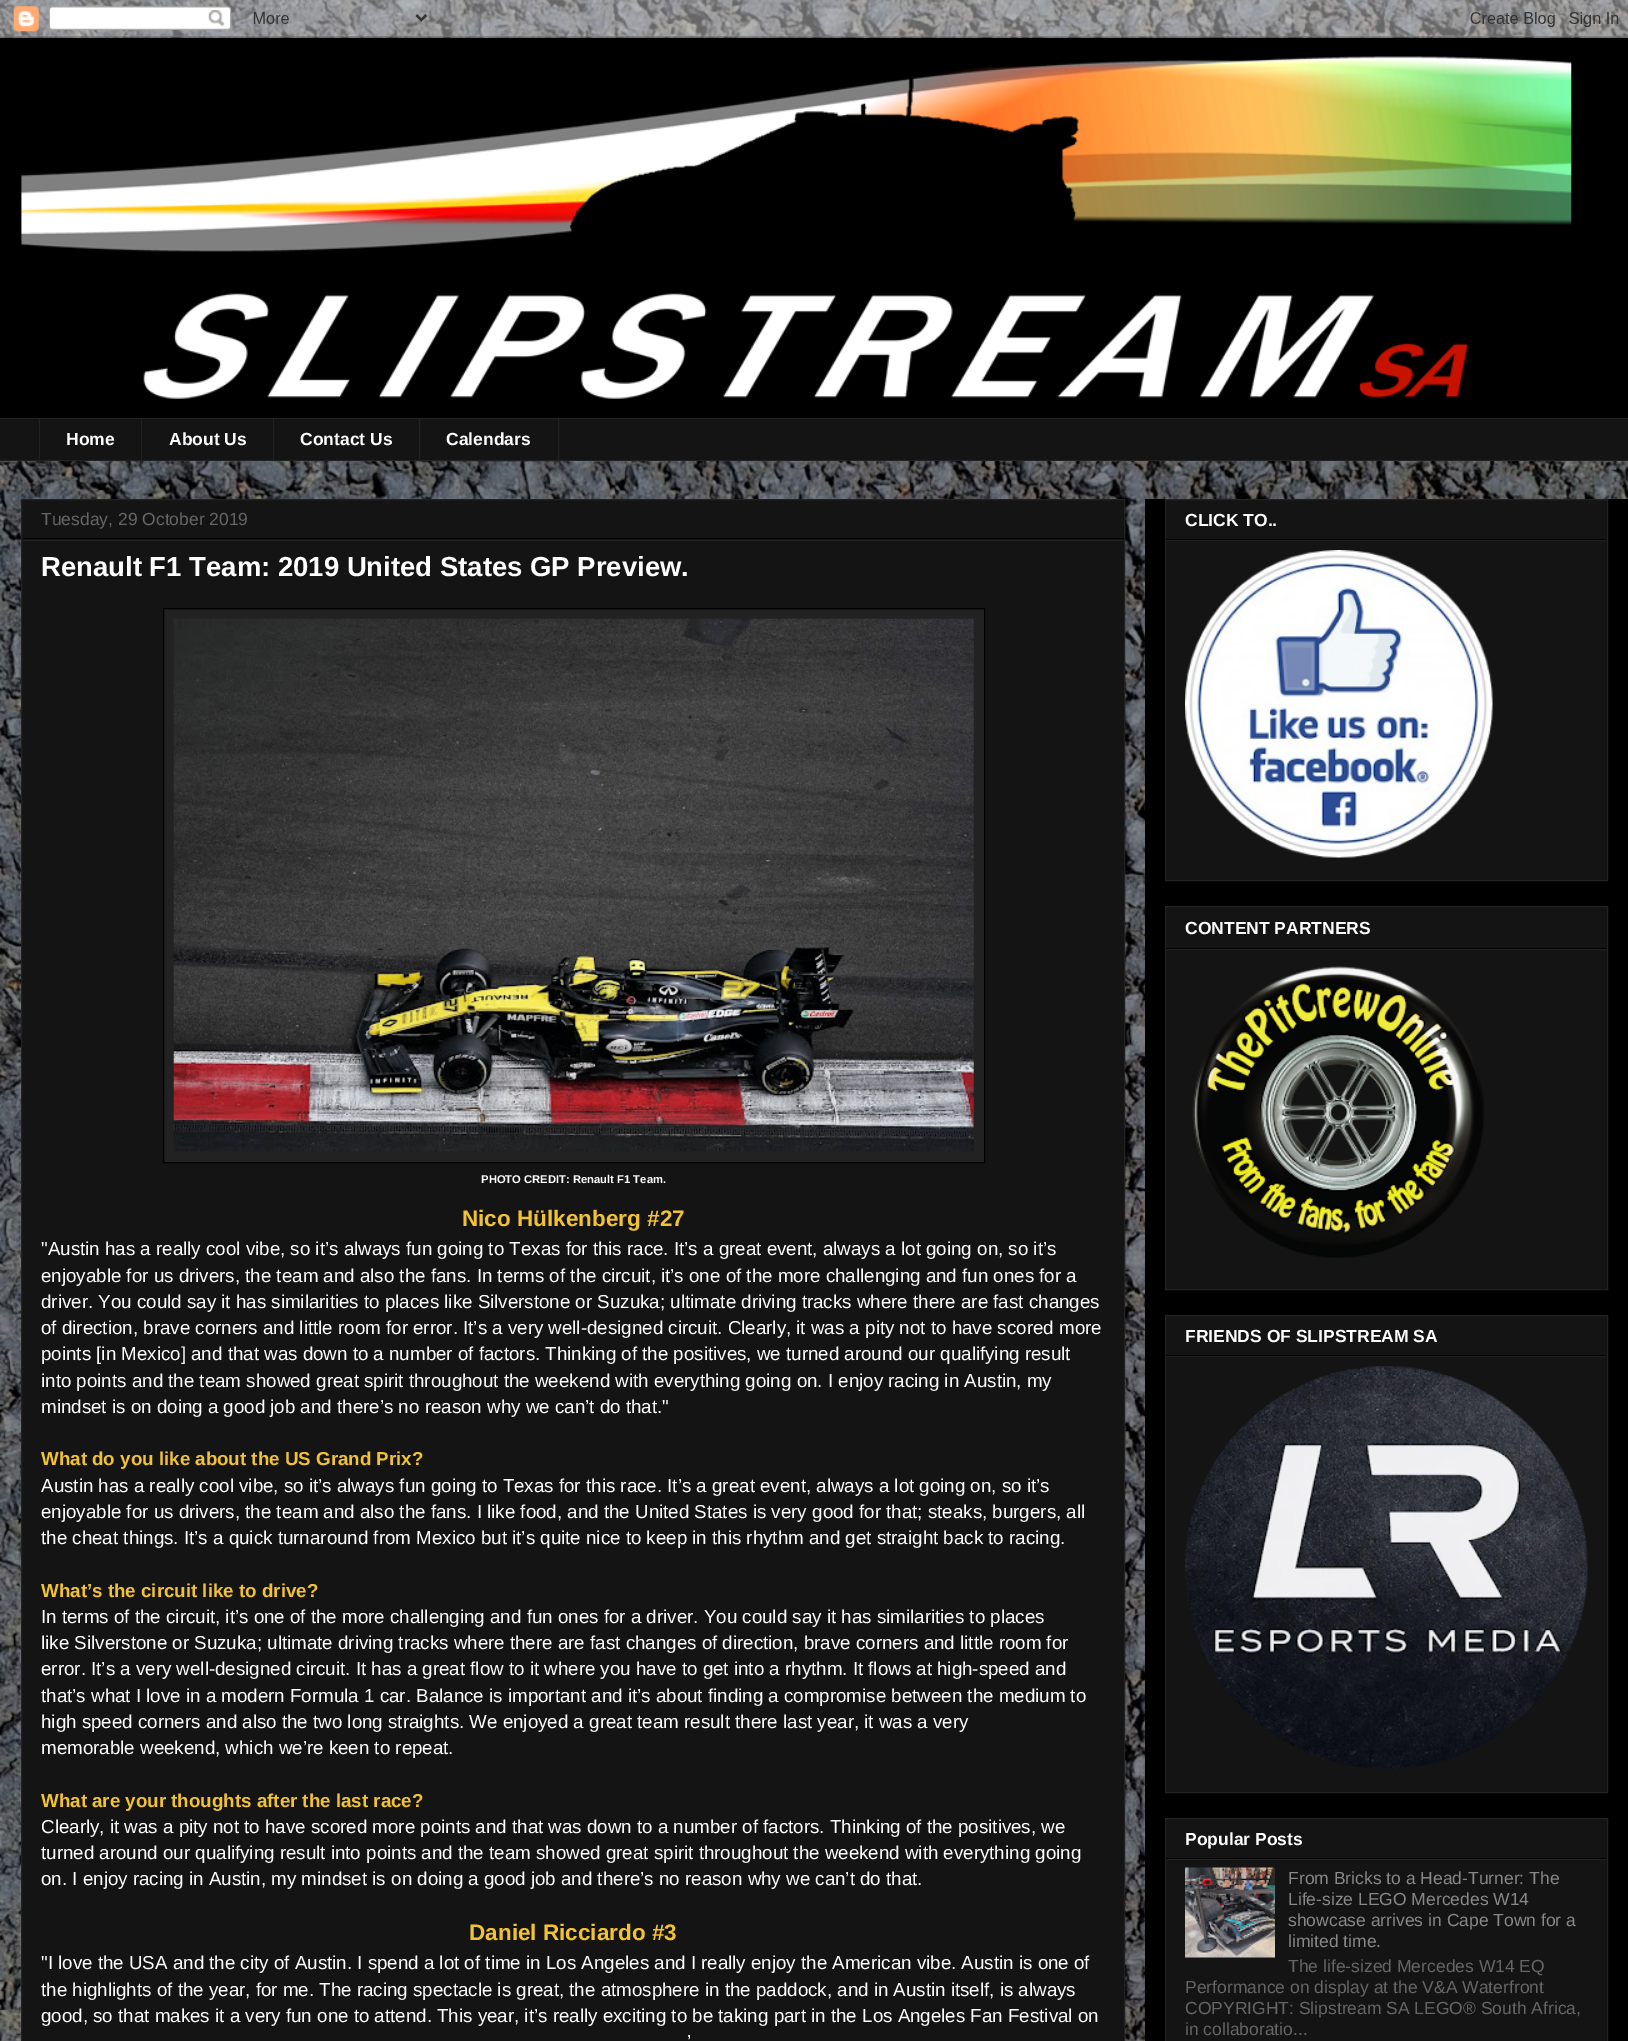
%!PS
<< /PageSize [1628 2041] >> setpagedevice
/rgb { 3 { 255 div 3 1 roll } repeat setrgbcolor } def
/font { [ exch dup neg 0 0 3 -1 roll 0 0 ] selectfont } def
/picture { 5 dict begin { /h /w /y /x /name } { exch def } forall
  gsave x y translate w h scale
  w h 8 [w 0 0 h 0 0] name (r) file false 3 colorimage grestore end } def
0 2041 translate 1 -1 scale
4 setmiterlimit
255 255 255 rgb
0 0 1628 2041 rectfill
(img/1.rgb) 0 0 1628 2041 picture
(img/2.rgb) 0 0 1628 38 picture
0 0 0 rgb
0 38 1628 380 rectfill
(img/3.rgb) 21 56 1551 343 picture
[
  [0 419 1628 41 20 20 20]
  [0 418 1628 1 34 34 34]
  [39 418 1 43 34 34 34]
  [141 418 1 43 34 34 34]
  [273 418 1 43 34 34 34]
] { aload pop rgb rectfill } forall
419.5 418.5 139 42 rectstroke
0 460 1628 1 rectfill
20 20 20 rgb
21.5 499.5 moveto 1124.5 499.5 lineto 1124.5 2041.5 lineto 21.5 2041.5 lineto closepath gsave fill grestore
34 34 34 rgb
stroke
0 0 0 rgb
23 538 1101 1 rectfill
34 34 34 rgb
23 540 1101 1 rectfill
163.5 608.5 moveto 984.5 608.5 lineto 984.5 1162.5 lineto 163.5 1162.5 lineto closepath gsave fill grestore
0 0 0 rgb
stroke
(img/4.rgb) 173 618 801 534 picture
1145 499 483 1542 rectfill
20 20 20 rgb
1165.5 499.5 moveto 1607.5 499.5 lineto 1607.5 880.5 lineto 1165.5 880.5 lineto closepath gsave fill grestore
34 34 34 rgb
stroke
0 0 0 rgb
1166 539 440 1 rectfill
34 34 34 rgb
1166 540 440 1 rectfill
(img/5.rgb) 1185 550 308 308 picture
20 20 20 rgb
1165.5 906.5 moveto 1607.5 906.5 lineto 1607.5 1289.5 lineto 1165.5 1289.5 lineto closepath gsave fill grestore
34 34 34 rgb
stroke
0 0 0 rgb
1166 948 440 1 rectfill
34 34 34 rgb
1166 949 440 1 rectfill
(img/6.rgb) 1192 966 292 292 picture
20 20 20 rgb
1165.5 1315.5 moveto 1607.5 1315.5 lineto 1607.5 1792.5 lineto 1165.5 1792.5 lineto closepath gsave fill grestore
34 34 34 rgb
stroke
0 0 0 rgb
1166 1355 440 1 rectfill
34 34 34 rgb
1166 1356 440 1 rectfill
(img/7.rgb) 1185 1366 403 403 picture
20 20 20 rgb
1165.5 1818.5 moveto 1607.5 1818.5 lineto 1607.5 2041.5 lineto 1165.5 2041.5 lineto closepath gsave fill grestore
34 34 34 rgb
stroke
0 0 0 rgb
1166 1858 440 1 rectfill
34 34 34 rgb
1166 1859 440 1 rectfill
(img/8.rgb) 1185 1867 90 91 picture
/LiberationSans-Bold 17.5 font
255 255 255 rgb
[
  [(Home) 66 445]
  [(About Us) 169 445]
  [(Contact Us) 300 445]
  [(Calendars) 446 445]
] { aload pop moveto show } forall
/LiberationSans-Regular 17.5 font
102 102 102 rgb
41 525 moveto (Tuesday, 29 October 2019) show
/LiberationSans-Bold 27.5 font
255 255 255 rgb
41 576 moveto (Renault F1 Team: 2019 United States GP Preview.) show
/LiberationSans-Bold 11.25 font
481 1183 moveto (PHOTO CREDIT: Renault F1 Team.) show
/LiberationSans-Bold 22.5 font
241 194 50 rgb
462 1226 moveto (Nico Hülkenberg #27) show
/LiberationSans-Regular 18.75 font
255 255 255 rgb
[
  [("Austin has a really cool vibe, so it’s always fun going to Texas for this race. It’s a great event, always a lot going on, so it’s) 41 1255]
  [(enjoyable for us drivers, the team and also the fans. In terms of the circuit, it’s one of the more challenging and fun ones for a) 41 1282]
  [(driver. You could say it has similarities to places like Silverstone or Suzuka; ultimate driving tracks where there are fast changes) 41 1308]
  [(of direction, brave corners and little room for error. It’s a very well-designed circuit. Clearly, it was a pity not to have scored more) 41 1334]
  [(points [in Mexico] and that was down to a number of factors. Thinking of the positives, we turned around our qualifying result) 41 1360]
  [(into points and the team showed great spirit throughout the weekend with everything going on. I enjoy racing in Austin, my) 41 1387]
  [(mindset is on doing a good job and there’s no reason why we can’t do that.") 41 1413]
] { aload pop moveto show } forall
/LiberationSans-Bold 18.75 font
241 194 50 rgb
41 1465 moveto (What do you like about the US Grand Prix?) show
/LiberationSans-Regular 18.75 font
255 255 255 rgb
[
  [(Austin has a really cool vibe, so it’s always fun going to Texas for this race. It’s a great event, always a lot going on, so it’s) 41 1492]
  [(enjoyable for us drivers, the team and also the fans. I like food, and the United States is very good for that; steaks, burgers, all) 41 1518]
  [(the cheat things. It’s a quick turnaround from Mexico but it’s quite nice to keep in this rhythm and get straight back to racing.) 41 1544]
] { aload pop moveto show } forall
/LiberationSans-Bold 18.75 font
241 194 50 rgb
41 1597 moveto (What’s the circuit like to drive?) show
/LiberationSans-Regular 18.75 font
255 255 255 rgb
[
  [(In terms of the circuit, it’s one of the more challenging and fun ones for a driver. You could say it has similarities to places) 41 1623]
  [(like Silverstone or Suzuka; ultimate driving tracks where there are fast changes of direction, brave corners and little room for) 41 1649]
  [(error. It’s a very well-designed circuit. It has a great flow to it where you have to get into a rhythm. It flows at high-speed and) 41 1675]
  [(that’s what I love in a modern Formula 1 car. Balance is important and it’s about finding a compromise between the medium to) 41 1702]
  [(high speed corners and also the two long straights. We enjoyed a great team result there last year, it was a very) 41 1728]
  [(memorable weekend, which we’re keen to repeat.) 41 1754]
] { aload pop moveto show } forall
/LiberationSans-Bold 18.75 font
241 194 50 rgb
41 1807 moveto (What are your thoughts after the last race?) show
/LiberationSans-Regular 18.75 font
255 255 255 rgb
[
  [(Clearly, it was a pity not to have scored more points and that was down to a number of factors. Thinking of the positives, we) 41 1833]
  [(turned around our qualifying result into points and the team showed great spirit throughout the weekend with everything going) 41 1859]
  [(on. I enjoy racing in Austin, my mindset is on doing a good job and there’s no reason why we can’t do that.) 41 1885]
] { aload pop moveto show } forall
/LiberationSans-Bold 22.5 font
241 194 50 rgb
469 1940 moveto (Daniel Ricciardo #3) show
/LiberationSans-Regular 18.75 font
255 255 255 rgb
[
  [("I love the USA and the city of Austin. I spend a lot of time in Los Angeles and I really enjoy the American vibe. Austin is one of) 41 1969]
  [(the highlights of the year, for me. The racing spectacle is great, the atmosphere in the paddock, and in Austin itself, is always) 41 1996]
  [(good, so that makes it a very fun one to attend. This year, it’s really exciting to be taking part in the Los Angeles Fan Festival on) 41 2022]
  [(’) 687 2048]
] { aload pop moveto show } forall
/LiberationSans-Bold 17.5 font
[
  [(CLICK TO..) 1185 526]
  [(CONTENT PARTNERS) 1185 934]
  [(FRIENDS OF SLIPSTREAM SA) 1185 1342]
  [(Popular Posts) 1185 1845]
] { aload pop moveto show } forall
/LiberationSans-Regular 17.5 font
136 136 136 rgb
[
  [(From Bricks to a Head-Turner: The) 1288 1884]
  [(Life-size LEGO Mercedes W14) 1288 1905]
  [(showcase arrives in Cape Town for a) 1288 1926]
  [(limited time.) 1288 1947]
] { aload pop moveto show } forall
102 102 102 rgb
[
  [(The life-sized Mercedes W14 EQ) 1288 1972]
  [(Performance on display at the V&A Waterfront) 1185 1993]
  [(COPYRIGHT: Slipstream SA LEGO® South Africa,) 1185 2014]
  [(in collaboratio...) 1185 2035]
] { aload pop moveto show } forall
showpage
